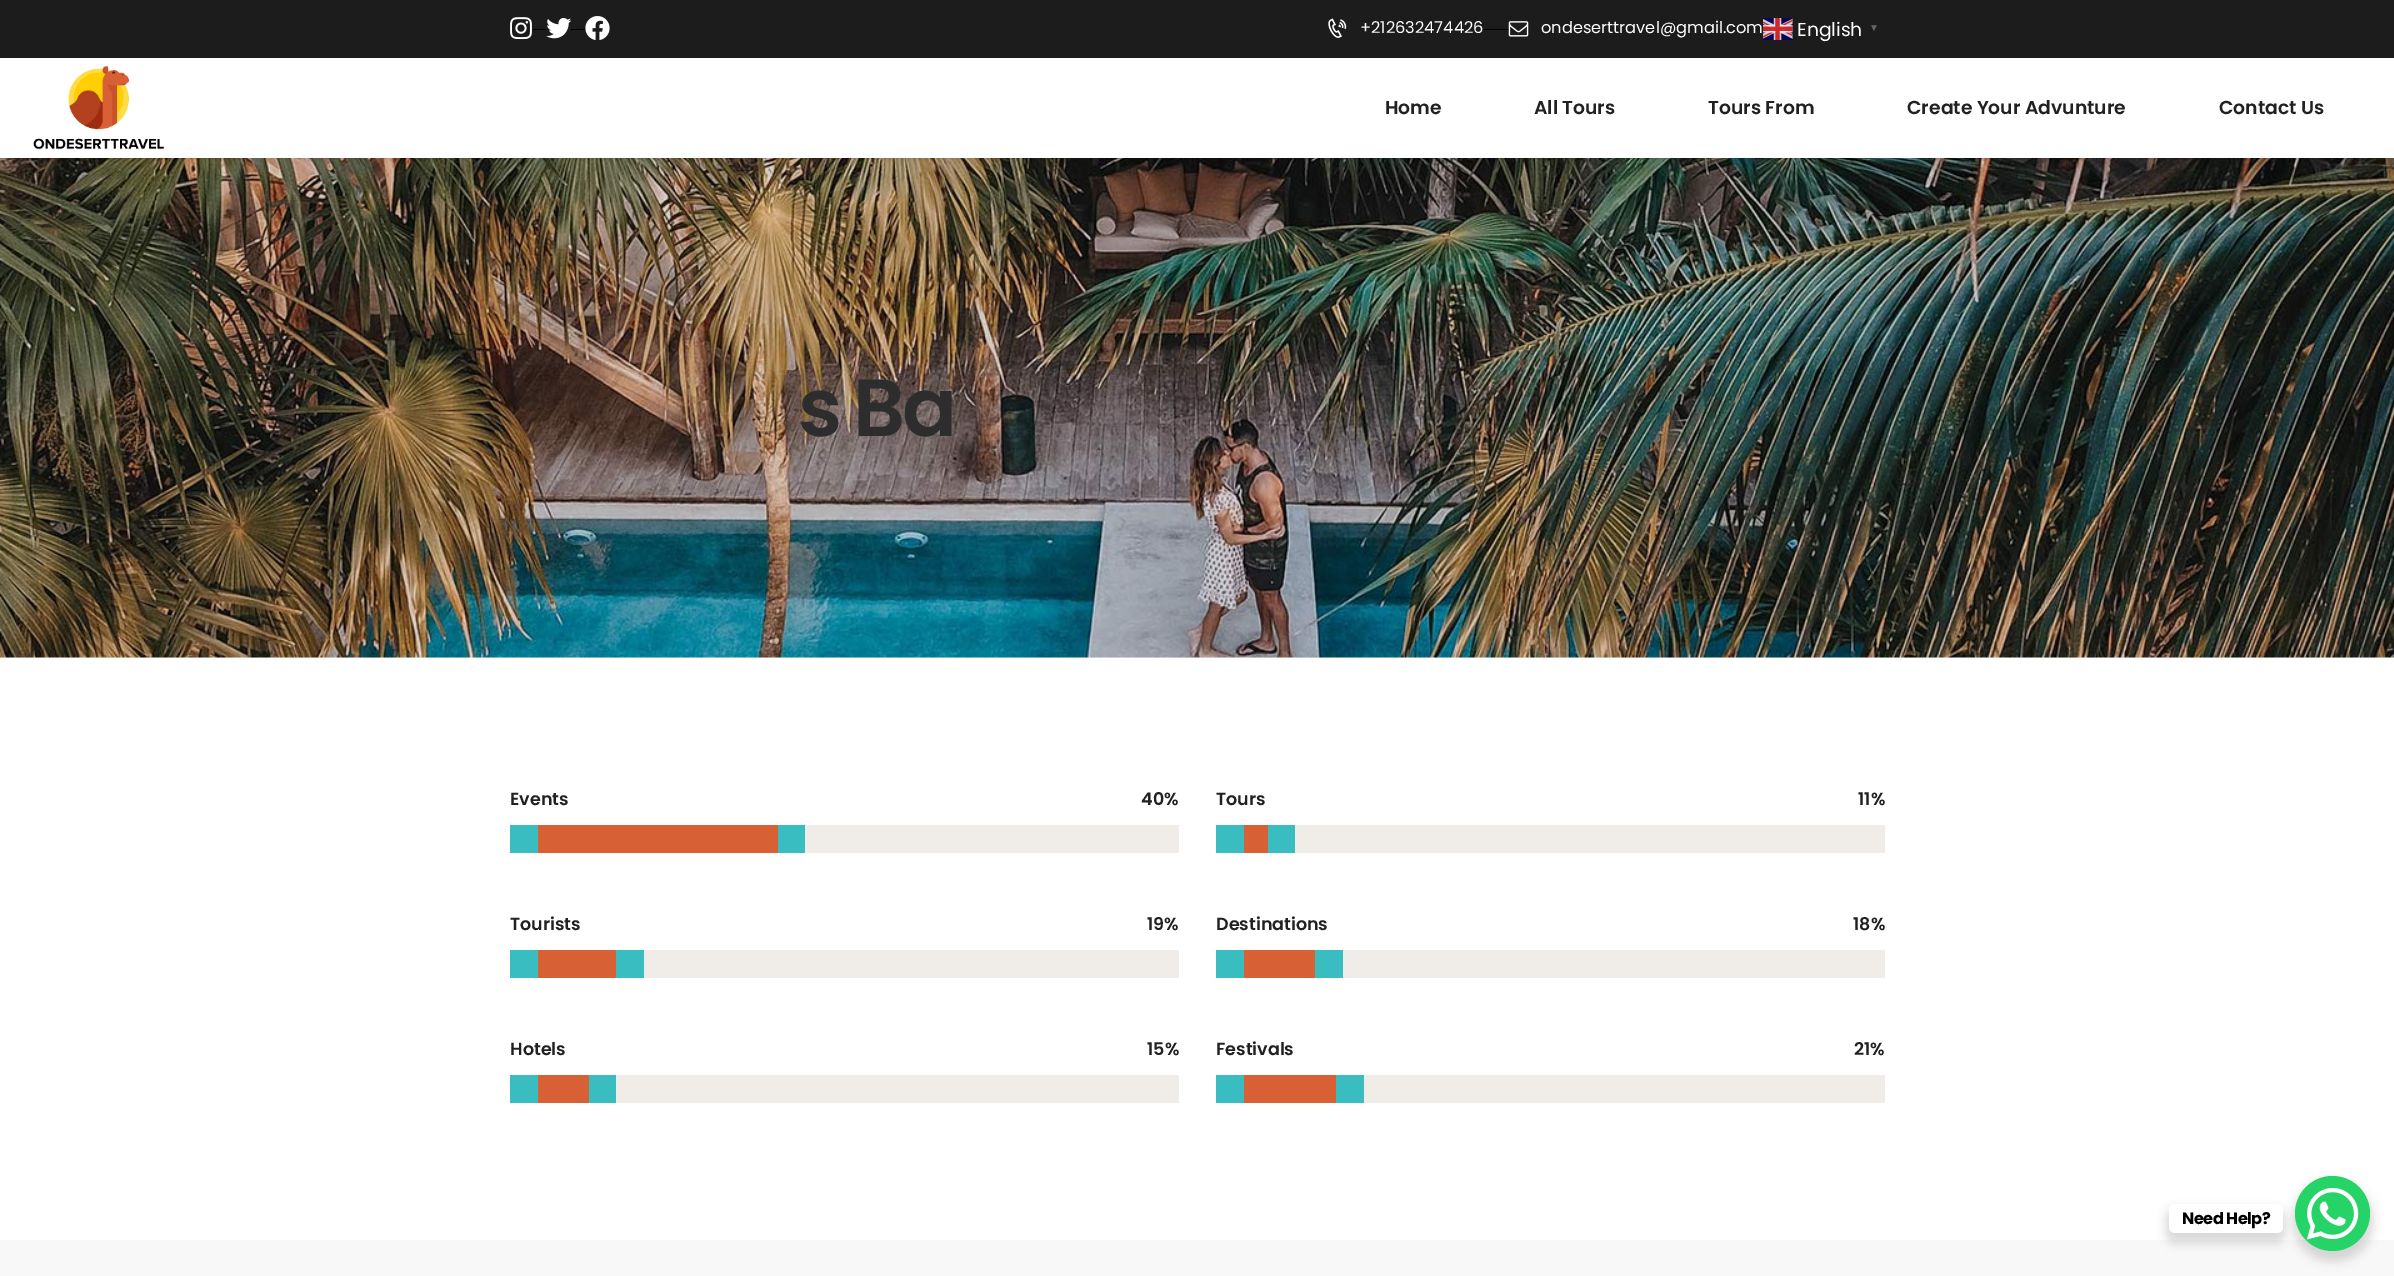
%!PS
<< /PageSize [2394 1276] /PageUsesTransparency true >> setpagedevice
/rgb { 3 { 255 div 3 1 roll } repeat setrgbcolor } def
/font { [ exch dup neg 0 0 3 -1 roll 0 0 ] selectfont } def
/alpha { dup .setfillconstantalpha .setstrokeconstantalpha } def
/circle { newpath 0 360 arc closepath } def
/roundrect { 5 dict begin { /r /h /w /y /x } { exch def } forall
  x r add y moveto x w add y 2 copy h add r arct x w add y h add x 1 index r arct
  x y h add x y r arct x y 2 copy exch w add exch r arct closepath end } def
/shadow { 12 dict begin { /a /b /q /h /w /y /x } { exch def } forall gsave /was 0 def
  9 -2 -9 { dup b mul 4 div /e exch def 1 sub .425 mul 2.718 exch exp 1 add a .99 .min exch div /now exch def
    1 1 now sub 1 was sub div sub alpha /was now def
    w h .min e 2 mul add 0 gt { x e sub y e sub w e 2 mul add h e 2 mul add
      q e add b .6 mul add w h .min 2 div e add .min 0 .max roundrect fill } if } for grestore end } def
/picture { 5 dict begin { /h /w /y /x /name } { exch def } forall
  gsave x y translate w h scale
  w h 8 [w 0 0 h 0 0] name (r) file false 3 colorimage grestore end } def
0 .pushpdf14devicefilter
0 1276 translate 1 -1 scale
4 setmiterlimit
255 255 255 rgb
0 0 2394 1276 rectfill
248 248 248 rgb
0 657 2394 1 rectfill
(img/8.rgb) 0 158 2394 500 picture
0 0 0 rgb
0 59 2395 100 0 2 0.15 shadow
28 28 28 rgb
0 0 2394 58 rectfill
(img/1.rgb) 510 17 22 23 picture
0 0 0 rgb
533 29 13 1 rectfill
(img/2.rgb) 546 18 26 21 picture
571 29 14 1 rectfill
(img/3.rgb) 585 16 25 24 picture
(img/4.rgb) 1328 18 19 20 picture
1484 29 25 1 rectfill
(img/5.rgb) 1508 21 21 16 picture
(img/6.rgb) 1763 18 30 22 picture
255 255 255 rgb
0 58 2394 100 rectfill
(img/7.rgb) 33 66 132 84 picture
[
  [805 825 374 28 240 237 232]
  [538 825 240 28 215 97 53]
  [510 825 28 28 58 189 193]
  [778 825 27 28 58 189 193]
  [644 950 535 28 240 237 232]
  [538 950 78 28 215 97 53]
  [510 950 28 28 58 189 193]
  [616 950 28 28 58 189 193]
  [616 1075 563 28 240 237 232]
  [538 1075 51 28 215 97 53]
  [510 1075 28 28 58 189 193]
  [589 1075 27 28 58 189 193]
  [1295 825 590 28 240 237 232]
  [1244 825 24 28 215 97 53]
  [1216 825 28 28 58 189 193]
  [1268 825 27 28 58 189 193]
  [1343 950 542 28 240 237 232]
  [1244 950 71 28 215 97 53]
  [1216 950 28 28 58 189 193]
  [1315 950 28 28 58 189 193]
  [1364 1075 521 28 240 237 232]
  [1244 1075 92 28 215 97 53]
  [1216 1075 28 28 58 189 193]
  [1336 1075 28 28 58 189 193]
  [0 1240 2394 36 248 248 248]
] { aload pop rgb rectfill } forall
0 0 0 rgb
2293 1181 80 80 40 5 0.15 shadow
37 211 102 rgb
2332.5 1213.5 37.5 circle fill
0 0 0 rgb
2166 1209 119 34 9 5 0.15 shadow
255 255 255 rgb
2169 1204 114 29 6 roundrect fill
(img/9.rgb) 2307 1187 52 53 picture
/Poppins-Regular 16.25 font
1360 33 moveto (+212632474426) show
1541 33 moveto (ondeserttravel@gmail.com) show
/Poppins-Regular 18.75 font
1797 36 moveto (English) show
/LiberationSans-Bold 10 font
102 102 102 rgb
1869 31 moveto (▼) show
/Poppins-SemiBold 18.75 font
33 33 33 rgb
[
  [(Home) 1385 114]
  [(All Tours) 1534 114]
  [(Tours From) 1708 114]
  [(Create Your Advunture) 1907 114]
  [(Contact Us) 2219 114]
] { aload pop moveto show } forall
/Poppins-SemiBold 81 font
45 45 45 rgb
798 436 moveto -4 0 (s Ba) ashow
/Poppins-SemiBold 17.5 font
33 33 33 rgb
[
  [(Events) 510 805]
  [(40%) 1141 805]
  [(Tourists) 510 930]
  [(19%) 1147 930]
  [(Hotels) 510 1055]
  [(15%) 1147 1055]
  [(Tours) 1216 805]
  [(11%) 1858 805]
  [(Destinations) 1216 930]
  [(18%) 1853 930]
  [(Festivals) 1216 1055]
  [(21%) 1854 1055]
] { aload pop moveto show } forall
/Poppins-Bold 16.25 font
0 0 0 rgb
2182 1224 moveto -0.5 0 (Need Help?) ashow
.poppdf14devicefilter showpage
